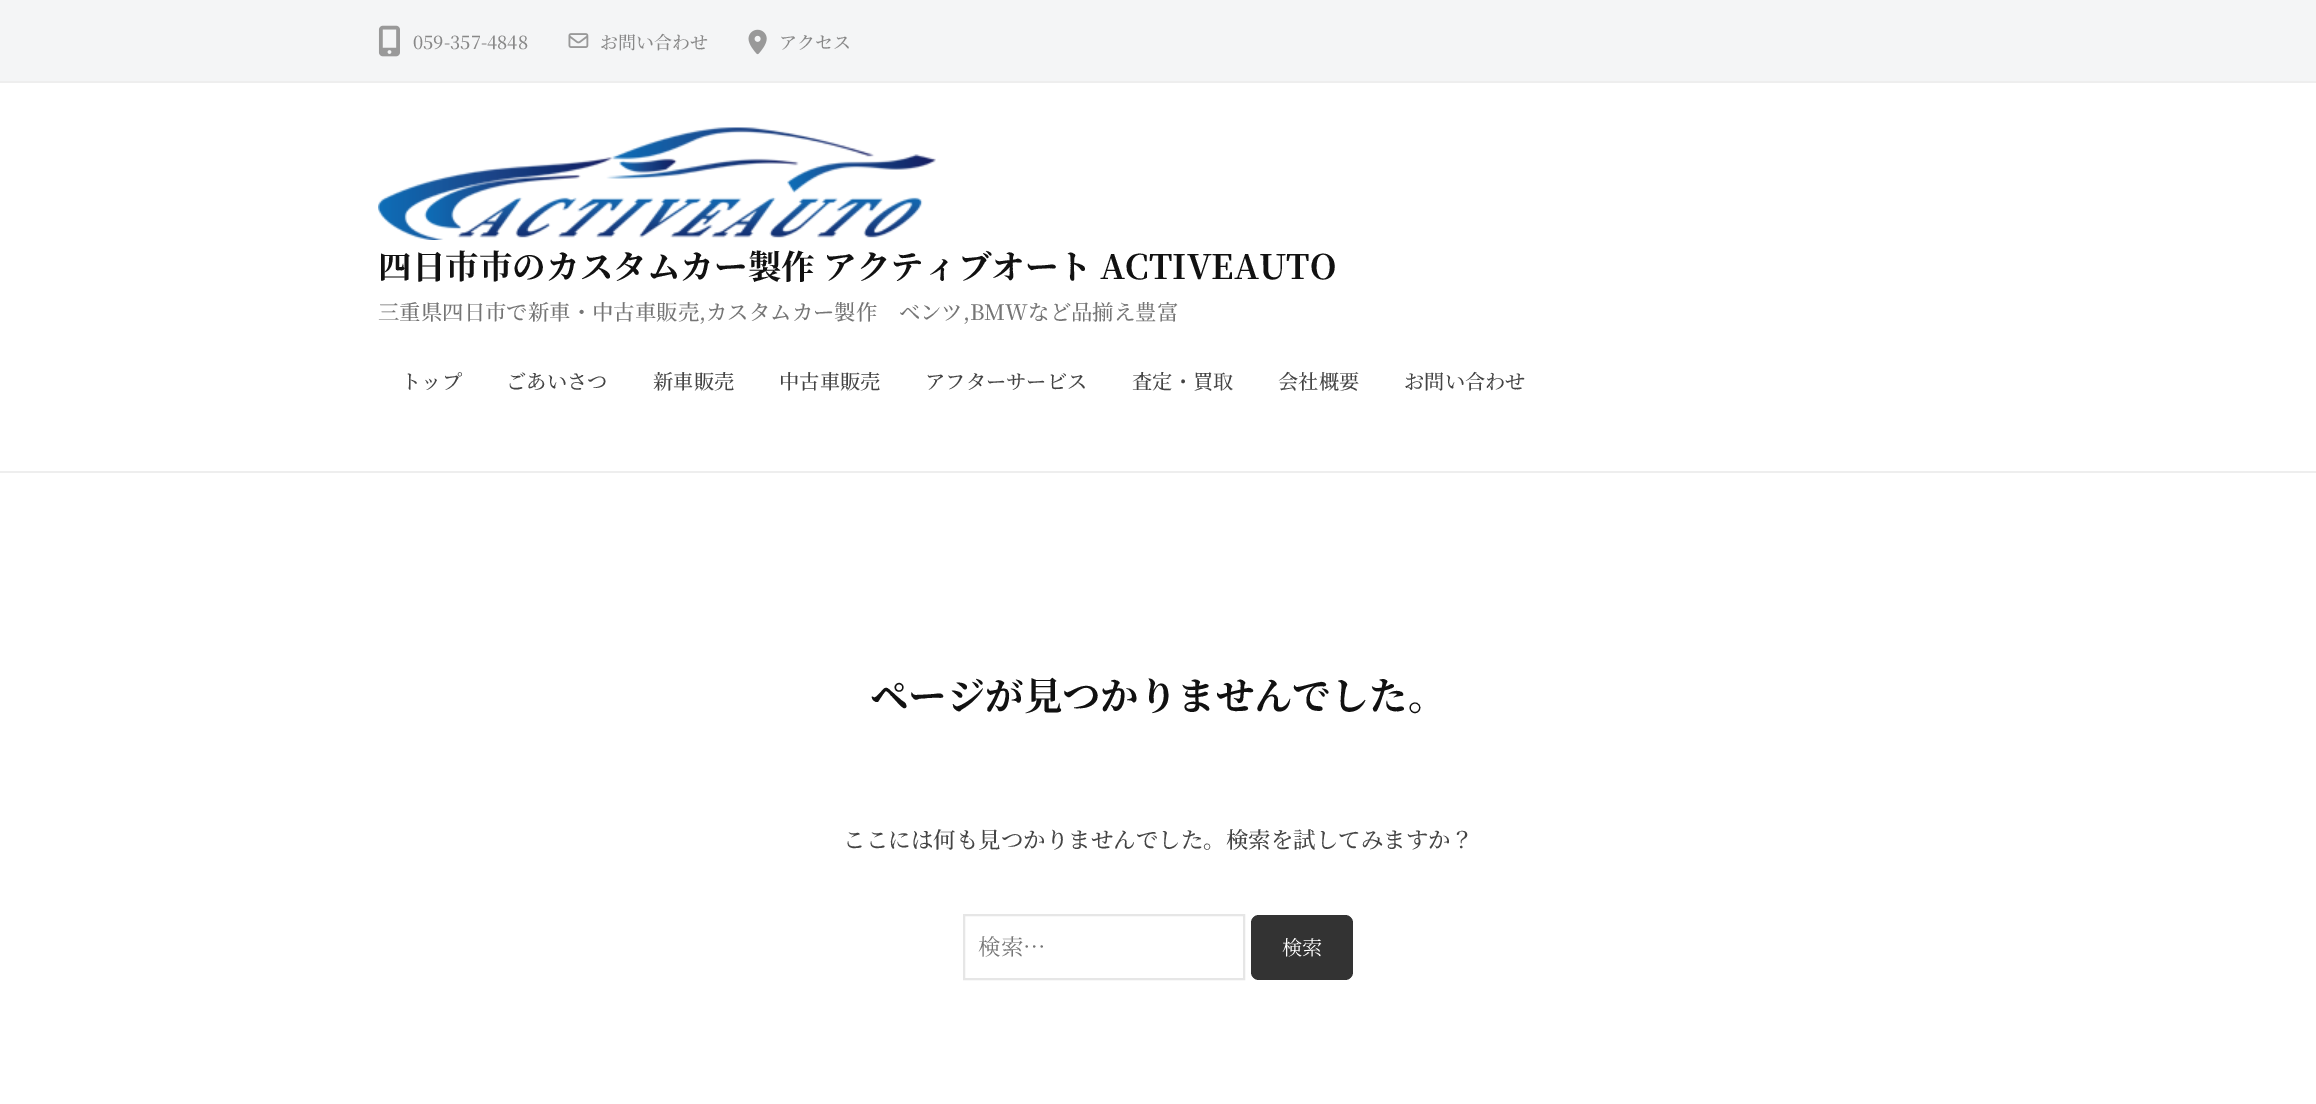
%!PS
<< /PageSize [2316 1104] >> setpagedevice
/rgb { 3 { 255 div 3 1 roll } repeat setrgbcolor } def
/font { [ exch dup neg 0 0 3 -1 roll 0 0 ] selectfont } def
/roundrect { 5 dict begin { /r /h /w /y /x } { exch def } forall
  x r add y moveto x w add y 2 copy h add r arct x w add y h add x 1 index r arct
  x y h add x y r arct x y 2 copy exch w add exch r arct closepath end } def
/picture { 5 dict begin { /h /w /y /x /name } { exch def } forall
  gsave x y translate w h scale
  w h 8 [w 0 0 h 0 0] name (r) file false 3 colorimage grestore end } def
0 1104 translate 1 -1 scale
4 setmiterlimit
255 255 255 rgb
0 0 2316 1104 rectfill
[
  [0 471 2316 2 238 238 238]
  [0 0 2316 81 244 245 246]
  [0 81 2316 2 238 238 238]
] { aload pop rgb rectfill } forall
(img/1.rgb) 378 25 22 32 picture
(img/2.rgb) 568 33 21 15 picture
(img/3.rgb) 748 29 19 26 picture
(img/4.rgb) 378 127 558 113 picture
230 230 230 rgb
2 setlinewidth
964 915 280 64 rectstroke
51 51 51 rgb
1251 915 102 65 8 roundrect fill
/NotoSerifJP-Medium 18 font
136 136 136 rgb
[
  [(059-357-4848) 413 49]
  [(お問い合わせ) 600 49]
  [(アクセス) 779 49]
] { aload pop moveto show } forall
/NotoSerifJP-Bold 33.6 font
17 17 17 rgb
378 279 moveto (四日市市のカスタムカー製作 アクティブオート ACTIVEAUTO) show
/NotoSerifJP-Medium 21.4 font
117 117 117 rgb
378 320 moveto (三重県四日市で新車・中古車販売,カスタムカー製作　ベンツ,BMWなど品揃え豊富) show
/NotoSerifJP-Medium 20.25 font
68 68 68 rgb
[
  [(トップ) 401 389]
  [(ごあいさつ) 506 389]
  [(新車販売) 653 389]
  [(中古車販売) 779 389]
  [(アフターサービス) 925 389]
  [(査定・買取) 1132 389]
  [(会社概要) 1278 389]
  [(お問い合わせ) 1404 389]
] { aload pop moveto show } forall
/NotoSerifJP-Bold 38.4 font
17 17 17 rgb
870 710 moveto (ページが見つかりませんでした。) show
/NotoSerifJP-Medium 22.5 font
68 68 68 rgb
843 848 moveto (ここには何も見つかりませんでした。検索を試してみますか？) show
/NotoSerifJP-Regular 22.5 font
117 117 117 rgb
978 955 moveto (検索…) show
/NotoSerifJP-Regular 20.25 font
255 255 255 rgb
1282 955 moveto (検索) show
showpage
